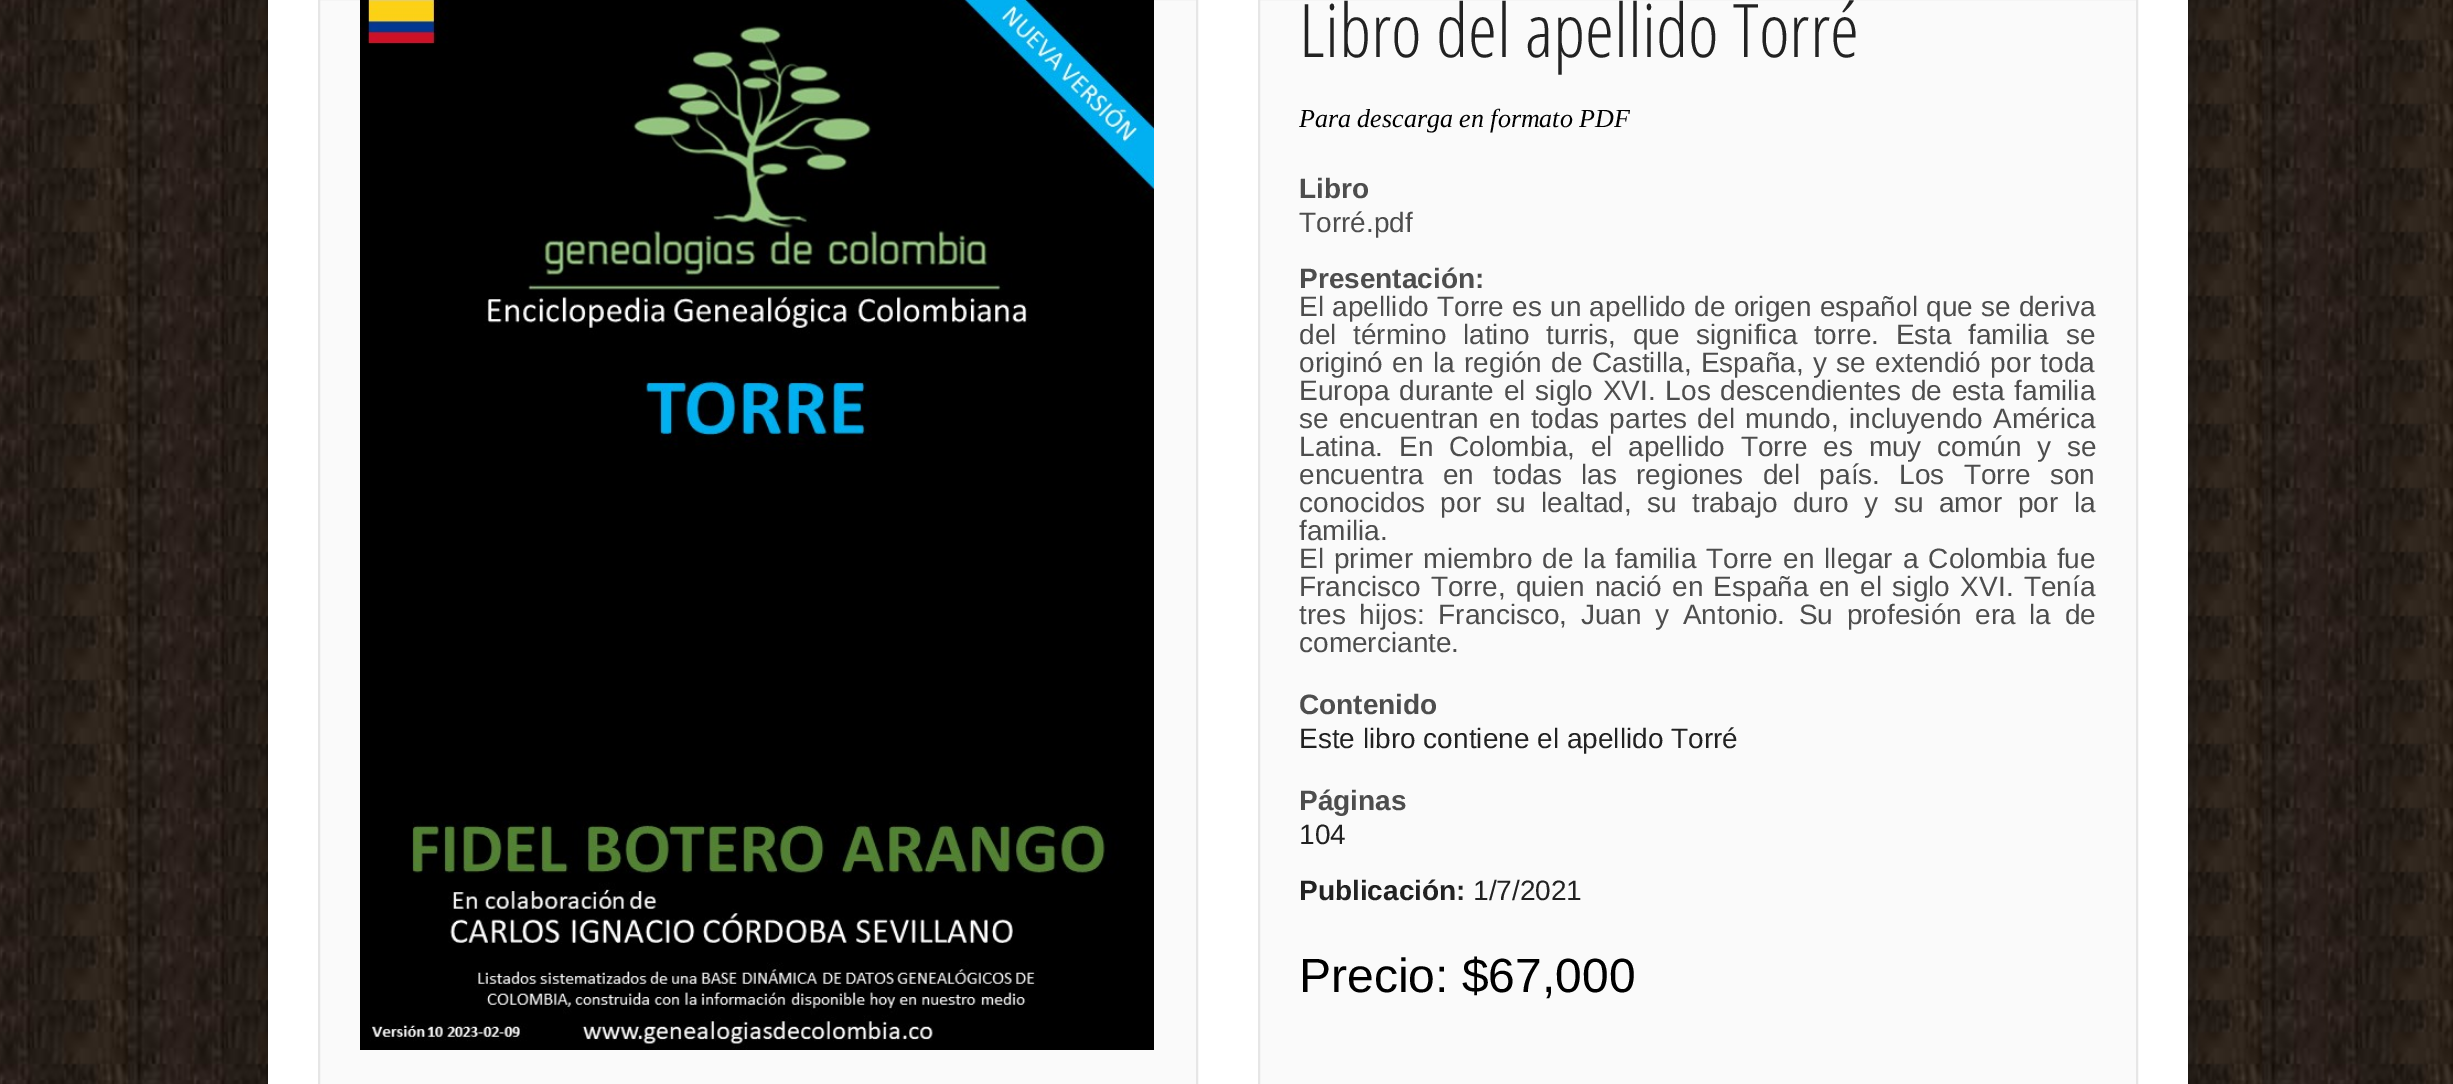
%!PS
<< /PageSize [2453 1084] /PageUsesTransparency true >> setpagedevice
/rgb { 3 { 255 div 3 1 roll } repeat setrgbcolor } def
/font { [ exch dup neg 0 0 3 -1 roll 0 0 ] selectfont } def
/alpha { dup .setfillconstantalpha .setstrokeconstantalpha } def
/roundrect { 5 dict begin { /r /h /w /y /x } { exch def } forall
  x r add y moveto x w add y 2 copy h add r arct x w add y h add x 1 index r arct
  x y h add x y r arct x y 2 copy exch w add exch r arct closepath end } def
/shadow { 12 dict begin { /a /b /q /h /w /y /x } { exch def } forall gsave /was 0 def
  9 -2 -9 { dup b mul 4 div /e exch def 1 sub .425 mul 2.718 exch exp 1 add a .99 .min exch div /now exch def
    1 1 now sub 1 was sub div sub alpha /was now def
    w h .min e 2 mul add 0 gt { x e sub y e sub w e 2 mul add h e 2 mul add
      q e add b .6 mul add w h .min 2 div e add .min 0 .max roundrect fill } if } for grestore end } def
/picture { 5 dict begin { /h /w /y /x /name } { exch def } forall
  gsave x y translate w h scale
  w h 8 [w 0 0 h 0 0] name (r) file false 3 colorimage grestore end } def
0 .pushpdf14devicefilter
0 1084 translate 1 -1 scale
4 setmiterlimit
255 255 255 rgb
0 0 2453 1084 rectfill
(img/1.rgb) 0 0 2453 1084 picture
0 0 0 rgb
268 -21 1920 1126 6 5 0.3 shadow
255 255 255 rgb
268 0 1920 1084 rectfill
250 250 250 rgb
319 -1 moveto 1197 -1 lineto 1197 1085 lineto 319 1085 lineto closepath gsave fill grestore
230 230 230 rgb
2 setlinewidth
stroke
(img/2.rgb) 360 0 794 1050 picture
250 250 250 rgb
1259 -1 moveto 2137 -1 lineto 2137 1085 lineto 1259 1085 lineto closepath gsave fill grestore
230 230 230 rgb
stroke
/OpenSans-Light 74 font
34 34 34 rgb
1299 57 moveto (Libro del apellido Torré) show
/LiberationSerif-Italic 26 font
0 0 0 rgb
1299 127 moveto (Para descarga en formato PDF) show
/LiberationSans-Bold 28 font
77 77 77 rgb
1299 198 moveto (Libro) show
/LiberationSans-Regular 28 font
1299 232 moveto (Torré.pdf) show
/LiberationSans-Bold 28 font
1299 288 moveto (Presentación:) show
/LiberationSans-Regular 28 font
1299 316 moveto 0.5 0 32 (El apellido Torre es un apellido de origen español que se deriva) widthshow
1299 344 moveto 8.75 0 32 (del término latino turris, que significa torre. Esta familia se) widthshow
1299 372 moveto 1.6 0 32 (originó en la región de Castilla, España, y se extendió por toda) widthshow
1299 400 moveto 2 0 32 (Europa durante el siglo XVI. Los descendientes de esta familia) widthshow
1299 428 moveto 2.5 0 32 (se encuentran en todas partes del mundo, incluyendo América) widthshow
1299 456 moveto 8 0 32 (Latina. En Colombia, el apellido Torre es muy común y se) widthshow
1299 484 moveto 11.5 0 32 (encuentra en todas las regiones del país. Los Torre son) widthshow
1299 512 moveto 7.6 0 32 (conocidos por su lealtad, su trabajo duro y su amor por la) widthshow
1299 540 moveto (familia.) show
1299 568 moveto 2.25 0 32 (El primer miembro de la familia Torre en llegar a Colombia fue) widthshow
1299 596 moveto 2.6 0 32 (Francisco Torre, quien nació en España en el siglo XVI. Tenía) widthshow
1299 624 moveto 5.75 0 32 (tres hijos: Francisco, Juan y Antonio. Su profesión era la de) widthshow
1299 652 moveto (comerciante.) show
/LiberationSans-Bold 28 font
1299 714 moveto (Contenido) show
/LiberationSans-Regular 28 font
34 34 34 rgb
1299 748 moveto (Este libro contiene el apellido Torré) show
/LiberationSans-Bold 28 font
77 77 77 rgb
1299 810 moveto (Páginas) show
/LiberationSans-Regular 28 font
34 34 34 rgb
1299 844 moveto (104) show
/LiberationSans-Bold 28 font
1299 900 moveto (Publicación:) show
/LiberationSans-Regular 28 font
1473 900 moveto (1/7/2021) show
/LiberationSans-Regular 48 font
0 0 0 rgb
1299 992 moveto (Precio: $67,000) show
.poppdf14devicefilter showpage
